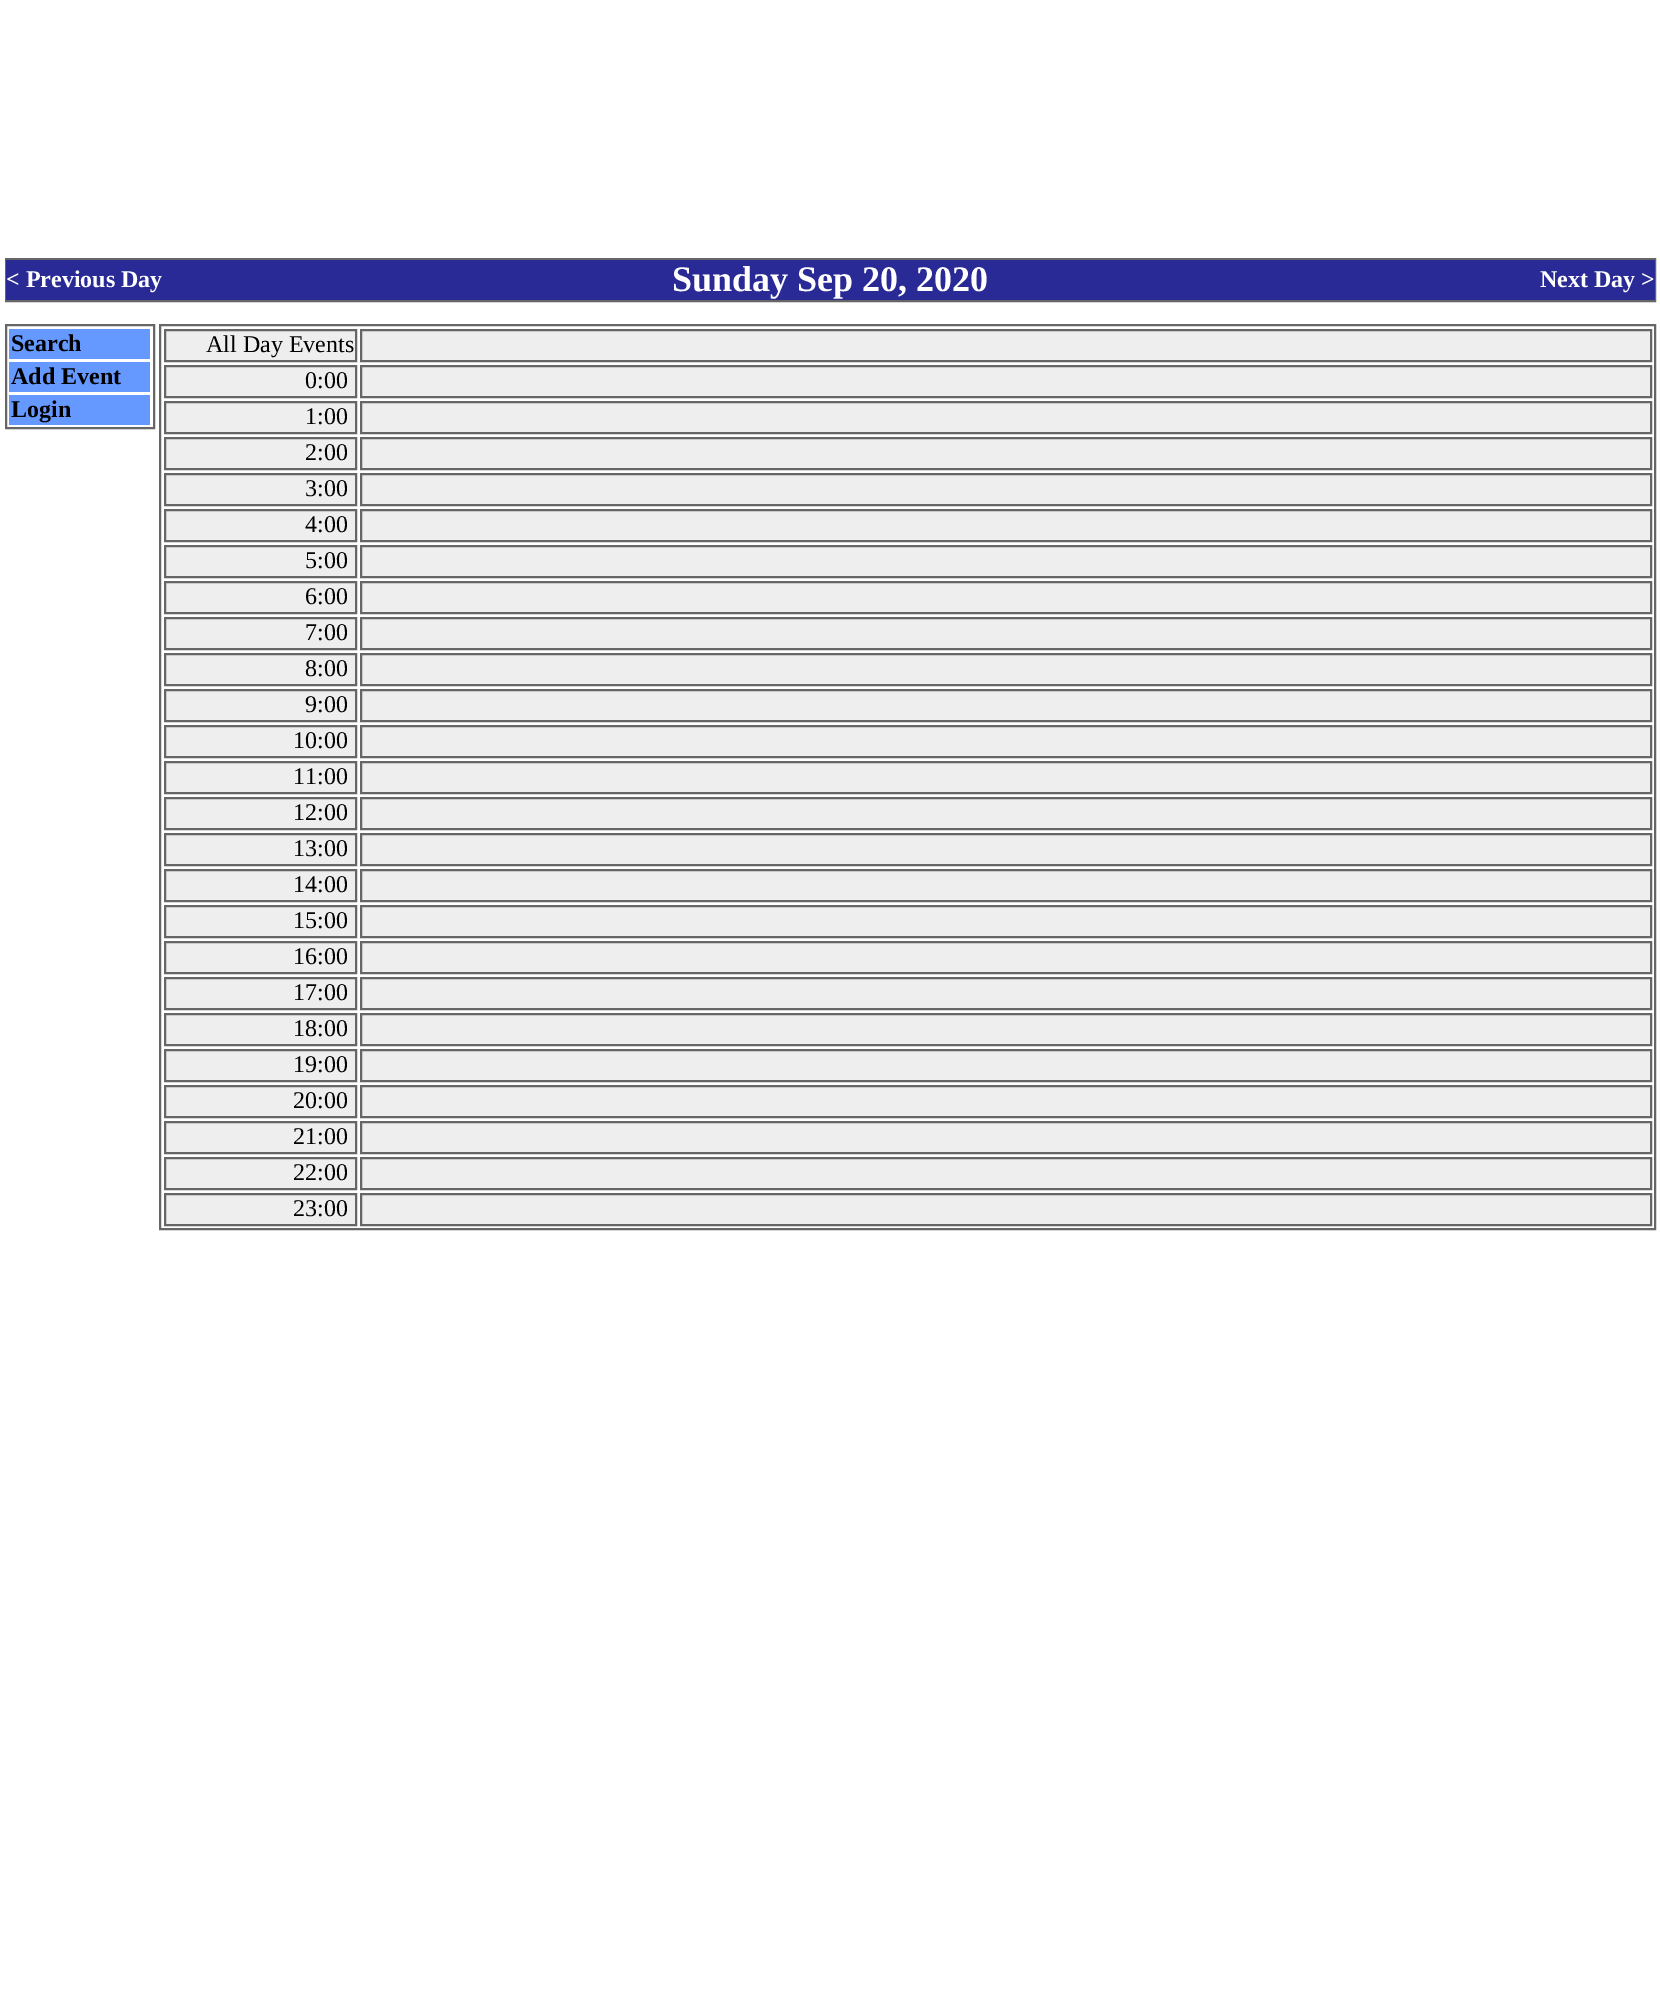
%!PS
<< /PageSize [1660 2005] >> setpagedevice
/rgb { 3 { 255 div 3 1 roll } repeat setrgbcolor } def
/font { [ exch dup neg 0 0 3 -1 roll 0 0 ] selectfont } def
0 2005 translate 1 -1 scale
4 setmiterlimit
255 255 255 rgb
0 0 1660 2005 rectfill
102 102 102 rgb
2 setlinewidth
6 259 1649 42 rectstroke
42 42 150 rgb
6 260 1649 40 rectfill
102 102 102 rgb
6 325 148 103 rectstroke
[
  [9 329 141 30 102 153 255]
  [9 362 141 30 102 153 255]
  [9 395 141 30 102 153 255]
] { aload pop rgb rectfill } forall
102 102 102 rgb
160 325 1495 904 rectstroke
238 238 238 rgb
165 330 moveto 356 330 lineto 356 361 lineto 165 361 lineto closepath gsave fill grestore
102 102 102 rgb
stroke
238 238 238 rgb
361 330 moveto 1651 330 lineto 1651 361 lineto 361 361 lineto closepath gsave fill grestore
102 102 102 rgb
stroke
238 238 238 rgb
165 366 moveto 356 366 lineto 356 397 lineto 165 397 lineto closepath gsave fill grestore
102 102 102 rgb
stroke
238 238 238 rgb
361 366 moveto 1651 366 lineto 1651 397 lineto 361 397 lineto closepath gsave fill grestore
102 102 102 rgb
stroke
238 238 238 rgb
165 402 moveto 356 402 lineto 356 433 lineto 165 433 lineto closepath gsave fill grestore
102 102 102 rgb
stroke
238 238 238 rgb
361 402 moveto 1651 402 lineto 1651 433 lineto 361 433 lineto closepath gsave fill grestore
102 102 102 rgb
stroke
238 238 238 rgb
165 438 moveto 356 438 lineto 356 469 lineto 165 469 lineto closepath gsave fill grestore
102 102 102 rgb
stroke
238 238 238 rgb
361 438 moveto 1651 438 lineto 1651 469 lineto 361 469 lineto closepath gsave fill grestore
102 102 102 rgb
stroke
238 238 238 rgb
165 474 moveto 356 474 lineto 356 505 lineto 165 505 lineto closepath gsave fill grestore
102 102 102 rgb
stroke
238 238 238 rgb
361 474 moveto 1651 474 lineto 1651 505 lineto 361 505 lineto closepath gsave fill grestore
102 102 102 rgb
stroke
238 238 238 rgb
165 510 moveto 356 510 lineto 356 541 lineto 165 541 lineto closepath gsave fill grestore
102 102 102 rgb
stroke
238 238 238 rgb
361 510 moveto 1651 510 lineto 1651 541 lineto 361 541 lineto closepath gsave fill grestore
102 102 102 rgb
stroke
238 238 238 rgb
165 546 moveto 356 546 lineto 356 577 lineto 165 577 lineto closepath gsave fill grestore
102 102 102 rgb
stroke
238 238 238 rgb
361 546 moveto 1651 546 lineto 1651 577 lineto 361 577 lineto closepath gsave fill grestore
102 102 102 rgb
stroke
238 238 238 rgb
165 582 moveto 356 582 lineto 356 613 lineto 165 613 lineto closepath gsave fill grestore
102 102 102 rgb
stroke
238 238 238 rgb
361 582 moveto 1651 582 lineto 1651 613 lineto 361 613 lineto closepath gsave fill grestore
102 102 102 rgb
stroke
238 238 238 rgb
165 618 moveto 356 618 lineto 356 649 lineto 165 649 lineto closepath gsave fill grestore
102 102 102 rgb
stroke
238 238 238 rgb
361 618 moveto 1651 618 lineto 1651 649 lineto 361 649 lineto closepath gsave fill grestore
102 102 102 rgb
stroke
238 238 238 rgb
165 654 moveto 356 654 lineto 356 685 lineto 165 685 lineto closepath gsave fill grestore
102 102 102 rgb
stroke
238 238 238 rgb
361 654 moveto 1651 654 lineto 1651 685 lineto 361 685 lineto closepath gsave fill grestore
102 102 102 rgb
stroke
238 238 238 rgb
165 690 moveto 356 690 lineto 356 721 lineto 165 721 lineto closepath gsave fill grestore
102 102 102 rgb
stroke
238 238 238 rgb
361 690 moveto 1651 690 lineto 1651 721 lineto 361 721 lineto closepath gsave fill grestore
102 102 102 rgb
stroke
238 238 238 rgb
165 726 moveto 356 726 lineto 356 757 lineto 165 757 lineto closepath gsave fill grestore
102 102 102 rgb
stroke
238 238 238 rgb
361 726 moveto 1651 726 lineto 1651 757 lineto 361 757 lineto closepath gsave fill grestore
102 102 102 rgb
stroke
238 238 238 rgb
165 762 moveto 356 762 lineto 356 793 lineto 165 793 lineto closepath gsave fill grestore
102 102 102 rgb
stroke
238 238 238 rgb
361 762 moveto 1651 762 lineto 1651 793 lineto 361 793 lineto closepath gsave fill grestore
102 102 102 rgb
stroke
238 238 238 rgb
165 798 moveto 356 798 lineto 356 829 lineto 165 829 lineto closepath gsave fill grestore
102 102 102 rgb
stroke
238 238 238 rgb
361 798 moveto 1651 798 lineto 1651 829 lineto 361 829 lineto closepath gsave fill grestore
102 102 102 rgb
stroke
238 238 238 rgb
165 834 moveto 356 834 lineto 356 865 lineto 165 865 lineto closepath gsave fill grestore
102 102 102 rgb
stroke
238 238 238 rgb
361 834 moveto 1651 834 lineto 1651 865 lineto 361 865 lineto closepath gsave fill grestore
102 102 102 rgb
stroke
238 238 238 rgb
165 870 moveto 356 870 lineto 356 901 lineto 165 901 lineto closepath gsave fill grestore
102 102 102 rgb
stroke
238 238 238 rgb
361 870 moveto 1651 870 lineto 1651 901 lineto 361 901 lineto closepath gsave fill grestore
102 102 102 rgb
stroke
238 238 238 rgb
165 906 moveto 356 906 lineto 356 937 lineto 165 937 lineto closepath gsave fill grestore
102 102 102 rgb
stroke
238 238 238 rgb
361 906 moveto 1651 906 lineto 1651 937 lineto 361 937 lineto closepath gsave fill grestore
102 102 102 rgb
stroke
238 238 238 rgb
165 942 moveto 356 942 lineto 356 973 lineto 165 973 lineto closepath gsave fill grestore
102 102 102 rgb
stroke
238 238 238 rgb
361 942 moveto 1651 942 lineto 1651 973 lineto 361 973 lineto closepath gsave fill grestore
102 102 102 rgb
stroke
238 238 238 rgb
165 978 moveto 356 978 lineto 356 1009 lineto 165 1009 lineto closepath gsave fill grestore
102 102 102 rgb
stroke
238 238 238 rgb
361 978 moveto 1651 978 lineto 1651 1009 lineto 361 1009 lineto closepath gsave fill grestore
102 102 102 rgb
stroke
238 238 238 rgb
165 1014 moveto 356 1014 lineto 356 1045 lineto 165 1045 lineto closepath gsave fill grestore
102 102 102 rgb
stroke
238 238 238 rgb
361 1014 moveto 1651 1014 lineto 1651 1045 lineto 361 1045 lineto closepath gsave fill grestore
102 102 102 rgb
stroke
238 238 238 rgb
165 1050 moveto 356 1050 lineto 356 1081 lineto 165 1081 lineto closepath gsave fill grestore
102 102 102 rgb
stroke
238 238 238 rgb
361 1050 moveto 1651 1050 lineto 1651 1081 lineto 361 1081 lineto closepath gsave fill grestore
102 102 102 rgb
stroke
238 238 238 rgb
165 1086 moveto 356 1086 lineto 356 1117 lineto 165 1117 lineto closepath gsave fill grestore
102 102 102 rgb
stroke
238 238 238 rgb
361 1086 moveto 1651 1086 lineto 1651 1117 lineto 361 1117 lineto closepath gsave fill grestore
102 102 102 rgb
stroke
238 238 238 rgb
165 1122 moveto 356 1122 lineto 356 1153 lineto 165 1153 lineto closepath gsave fill grestore
102 102 102 rgb
stroke
238 238 238 rgb
361 1122 moveto 1651 1122 lineto 1651 1153 lineto 361 1153 lineto closepath gsave fill grestore
102 102 102 rgb
stroke
238 238 238 rgb
165 1158 moveto 356 1158 lineto 356 1189 lineto 165 1189 lineto closepath gsave fill grestore
102 102 102 rgb
stroke
238 238 238 rgb
361 1158 moveto 1651 1158 lineto 1651 1189 lineto 361 1189 lineto closepath gsave fill grestore
102 102 102 rgb
stroke
238 238 238 rgb
165 1194 moveto 356 1194 lineto 356 1225 lineto 165 1225 lineto closepath gsave fill grestore
102 102 102 rgb
stroke
238 238 238 rgb
361 1194 moveto 1651 1194 lineto 1651 1225 lineto 361 1225 lineto closepath gsave fill grestore
102 102 102 rgb
stroke
/LiberationSerif-Bold 24 font
255 255 255 rgb
6 287 moveto (< Previous Day) show
/LiberationSerif-Bold 36 font
672 291 moveto (Sunday Sep 20, 2020) show
/LiberationSerif-Bold 24 font
1540 287 moveto (Next Day >) show
0 0 0 rgb
[
  [(Search) 11 351]
  [(Add Event) 11 384]
  [(Login) 11 417]
] { aload pop moveto show } forall
/LiberationSerif-Regular 24 font
[
  [(All Day Events) 206 352]
  [(0:00) 305 388]
  [(1:00) 305 424]
  [(2:00) 305 460]
  [(3:00) 305 496]
  [(4:00) 305 532]
  [(5:00) 305 568]
  [(6:00) 305 604]
  [(7:00) 305 640]
  [(8:00) 305 676]
  [(9:00) 305 712]
  [(10:00) 293 748]
  [(11:00) 293 784]
  [(12:00) 293 820]
  [(13:00) 293 856]
  [(14:00) 293 892]
  [(15:00) 293 928]
  [(16:00) 293 964]
  [(17:00) 293 1000]
  [(18:00) 293 1036]
  [(19:00) 293 1072]
  [(20:00) 293 1108]
  [(21:00) 293 1144]
  [(22:00) 293 1180]
  [(23:00) 293 1216]
] { aload pop moveto show } forall
showpage
